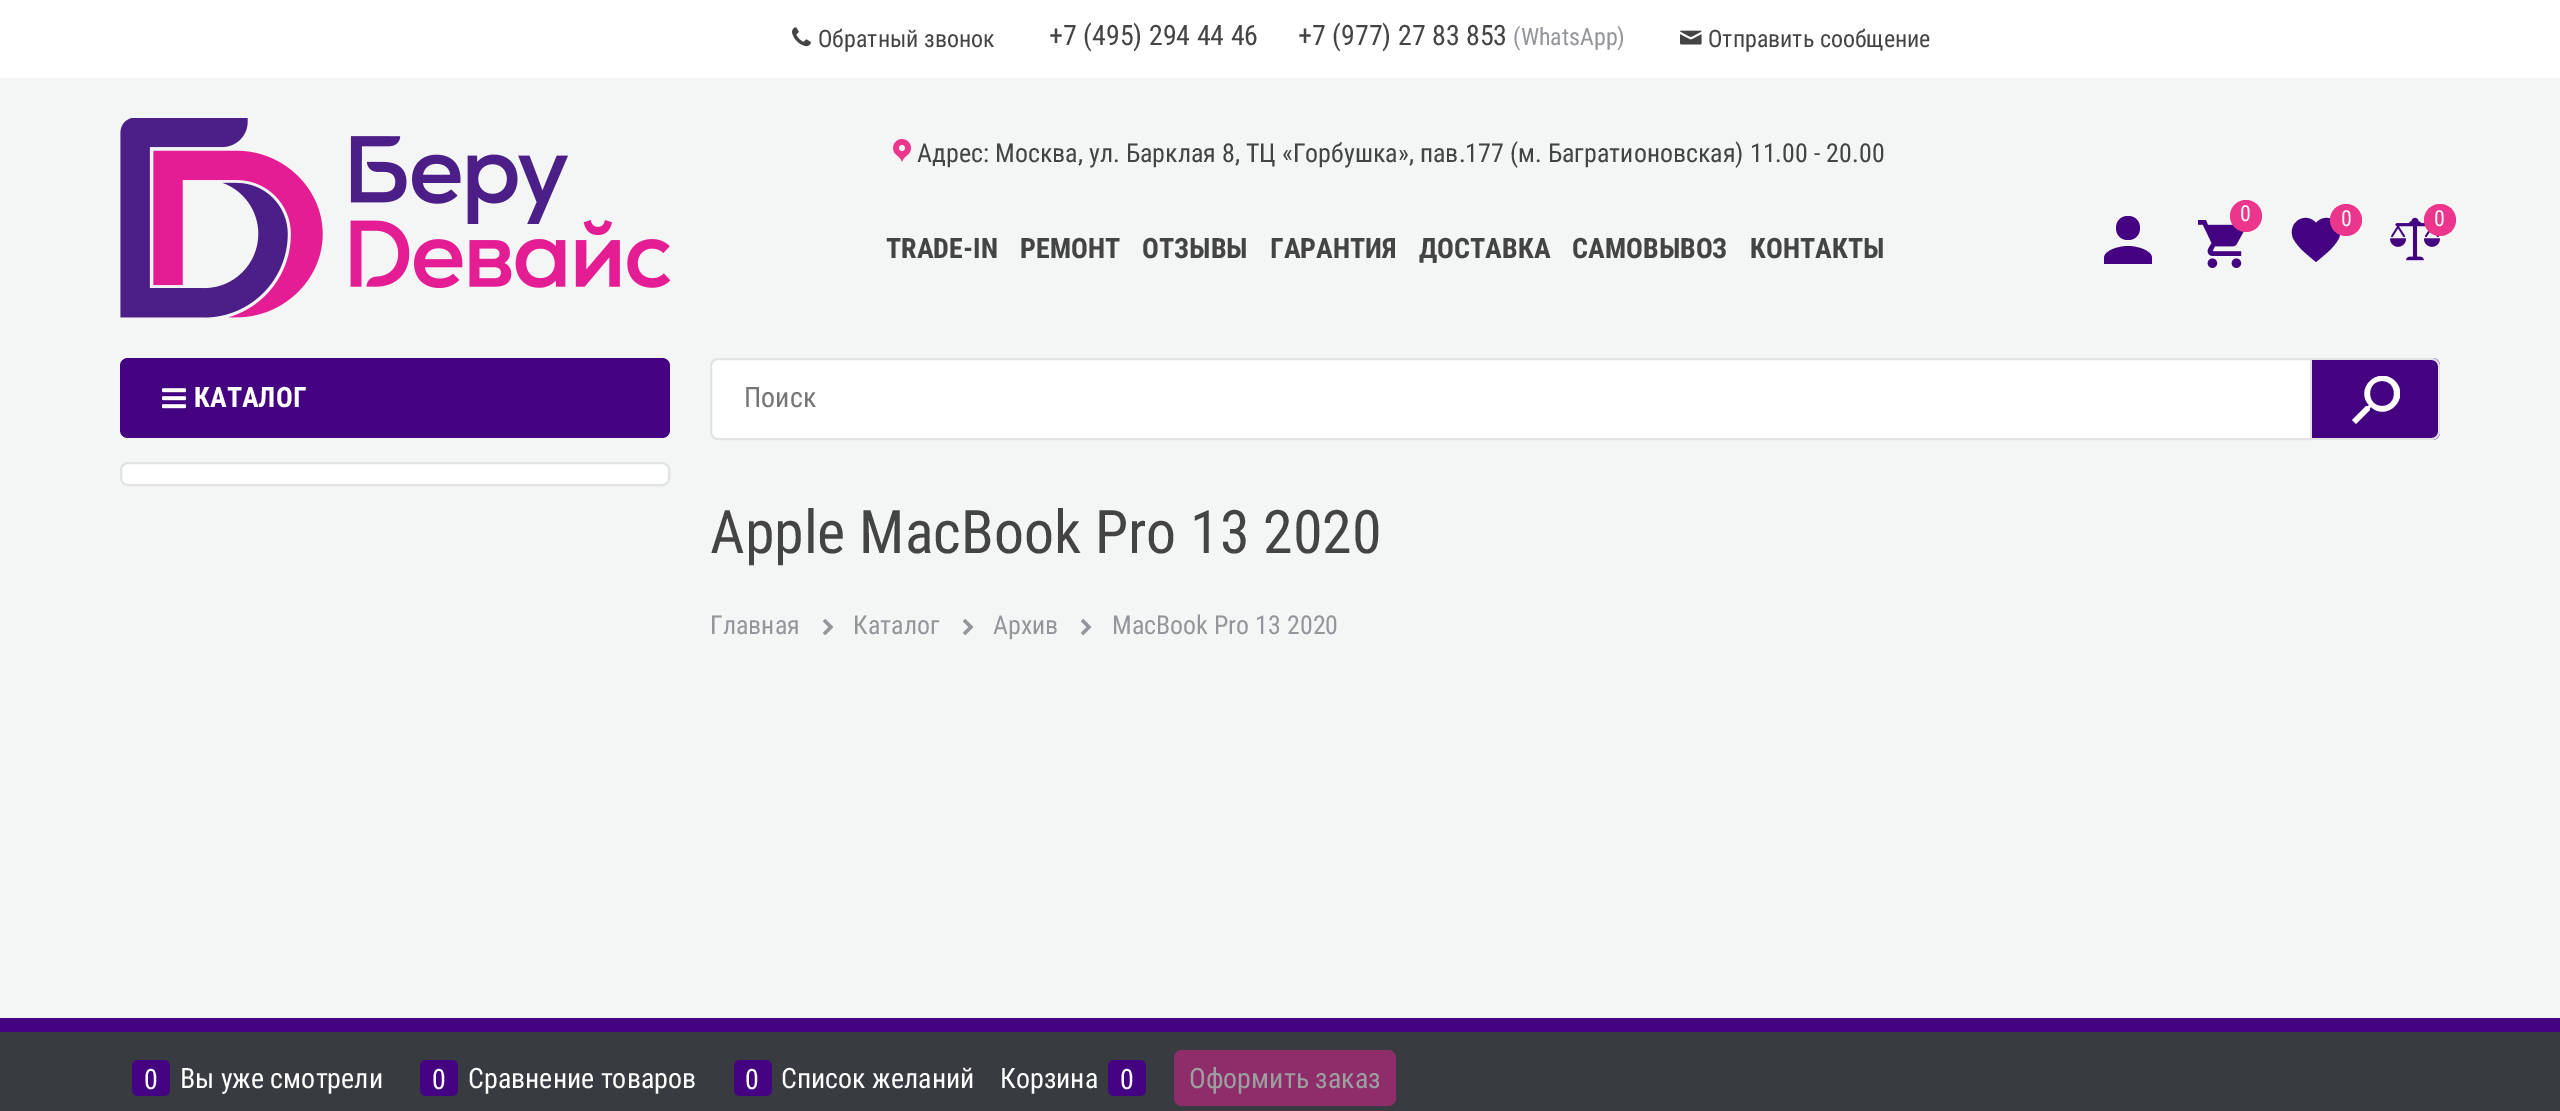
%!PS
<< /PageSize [2560 1111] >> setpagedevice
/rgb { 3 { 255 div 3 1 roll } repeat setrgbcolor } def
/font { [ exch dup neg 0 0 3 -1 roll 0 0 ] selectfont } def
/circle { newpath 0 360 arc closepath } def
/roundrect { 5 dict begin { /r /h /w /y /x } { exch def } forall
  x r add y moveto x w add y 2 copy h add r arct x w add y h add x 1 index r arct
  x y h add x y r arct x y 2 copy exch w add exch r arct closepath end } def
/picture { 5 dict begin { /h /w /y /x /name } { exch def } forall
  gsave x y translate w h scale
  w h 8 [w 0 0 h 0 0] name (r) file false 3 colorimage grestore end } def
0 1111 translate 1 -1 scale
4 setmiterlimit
244 246 246 rgb
0 0 2560 1111 rectfill
255 255 255 rgb
0 0 2560 78 rectfill
(img/1.rgb) 792 27 19 20 picture
(img/2.rgb) 1680 30 22 15 picture
(img/3.rgb) 120 118 550 200 picture
(img/4.rgb) 893 139 18 23 picture
68 3 129 rgb
2128 240 moveto 2144 240 2144 216 2128 216 curveto 2112 216 2112 240 2128 240 curveto closepath 2128 246 moveto 2120 246 2104 250 2104 258 curveto 2104 264 lineto 2152 264 lineto 2152 258 lineto 2152 250 2136 246 2128 246 curveto closepath fill
(img/5.rgb) 2198 220 46 48 picture
236 54 141 rgb
2246 216 16 circle fill
68 3 129 rgb
2316 262 moveto 2308 255 2298 248 2293 238 curveto 2287 222 2306 211 2316 223 curveto 2326 211 2345 222 2339 238 curveto 2334 248 2324 255 2316 262 curveto closepath fill
236 54 141 rgb
2346 220 16 circle fill
(img/6.rgb) 2390 217 50 44 picture
2440 220 16 circle fill
68 3 129 rgb
120 358 550 80 8 roundrect fill
(img/7.rgb) 162 388 24 21 picture
255 255 255 rgb
718 359 moveto 2311 359 lineto 2311 439 lineto 718 439 lineto 714 439 711 436 711 432 curveto 711 366 lineto 711 362 714 359 718 359 curveto closepath gsave fill grestore
226 227 228 rgb
2 setlinewidth
stroke
68 3 129 rgb
2312 358 moveto 2432 358 lineto 2436.5 358 2440 361.5 2440 366 curveto 2440 432 lineto 2440 436.5 2436.5 440 2432 440 curveto 2312 440 lineto closepath fill
226 227 228 rgb
2312 358 moveto 2432 358 lineto 2436 358 2440 362 2440 366 curveto 2440 432 lineto 2440 436 2436 440 2432 440 curveto 2312 440 lineto closepath 2312 360 moveto 2432 360 lineto 2435 360 2438 363 2438 366 curveto 2438 432 lineto 2438 435 2435 438 2432 438 curveto 2312 438 lineto closepath eofill
gsave
2352 376 48 48 rectclip
255 255 255 rgb
2366 406 moveto 2368 406 lineto 2369 405 lineto 2354 389 2378 365 2395 381 curveto 2411 398 2387 422 2371 407 curveto 2370 408 lineto 2370 410 lineto 2356 424 lineto 2352 420 lineto closepath 2382 406 moveto 2398 406 2398 381 2382 381 curveto 2366 381 2366 406 2382 406 curveto closepath fill
grestore
255 255 255 rgb
121 463 548 22 7 roundrect gsave fill grestore
226 227 228 rgb
stroke
(img/8.rgb) 823 619 11 17 picture
(img/8.rgb) 963 619 11 17 picture
(img/8.rgb) 1081 619 11 17 picture
68 3 129 rgb
0 1018 2560 14 rectfill
56 60 64 rgb
0 1032 2560 79 rectfill
68 3 129 rgb
132 1060 38 36 6 roundrect fill
420 1060 38 36 6 roundrect fill
734 1060 38 36 6 roundrect fill
1108 1060 38 36 6 roundrect fill
142 45 106 rgb
1174 1050 222 56 8 roundrect fill
/RobotoCondensed-Regular 24 font
68 68 68 rgb
818 47 moveto (Обратный звонок) show
/RobotoCondensed-Regular 28 font
1049 45 moveto (+7 \(495\) 294 44 46) show
1298 45 moveto (+7 \(977\) 27 83 853) show
/RobotoCondensed-Regular 24 font
148 150 155 rgb
1513 45 moveto (\(WhatsApp\)) show
68 68 68 rgb
1708 47 moveto (Отправить сообщение) show
/RobotoCondensed-Regular 26 font
917 162 moveto (Адрес: Москва, ул. Барклая 8, ТЦ «Горбушка», пав.177 \(м. Багратионовская\) 11.00 - 20.00) show
/RobotoCondensed-Bold 28 font
[
  [(TRADE-IN) 886 258]
  [(РЕМОНТ) 1020 258]
  [(ОТЗЫВЫ) 1142 258]
  [(ГАРАНТИЯ) 1270 258]
  [(ДОСТАВКА) 1419 258]
  [(САМОВЫВОЗ) 1572 258]
  [(КОНТАКТЫ) 1750 258]
] { aload pop moveto show } forall
/RobotoCondensed-Regular 22 font
255 255 255 rgb
[
  [(0) 2240 221]
  [(0) 2341 226]
  [(0) 2434 226]
] { aload pop moveto show } forall
/RobotoCondensed-Bold 28 font
194 407 moveto (КАТАЛОГ) show
/RobotoCondensed-Regular 28 font
117 117 117 rgb
744 407 moveto (Поиск) show
/RobotoCondensed-Regular 60 font
68 68 68 rgb
710 553 moveto (Apple MacBook Pro 13 2020) show
/RobotoCondensed-Regular 26 font
148 150 155 rgb
[
  [(Главная) 710 634]
  [(Каталог) 853 634]
  [(Архив) 993 634]
  [(MacBook Pro 13 2020) 1112 634]
] { aload pop moveto show } forall
/RobotoCondensed-Regular 28 font
255 255 255 rgb
[
  [(0) 144 1089]
  [(Вы уже смотрели) 180 1088]
  [(0) 432 1089]
  [(Сравнение товаров) 468 1088]
  [(0) 745 1089]
  [(Список желаний) 781 1088]
  [(Корзина) 1000 1088]
  [(0) 1120 1089]
] { aload pop moveto show } forall
156 158 160 rgb
1189 1088 moveto (Оформить заказ) show
showpage
